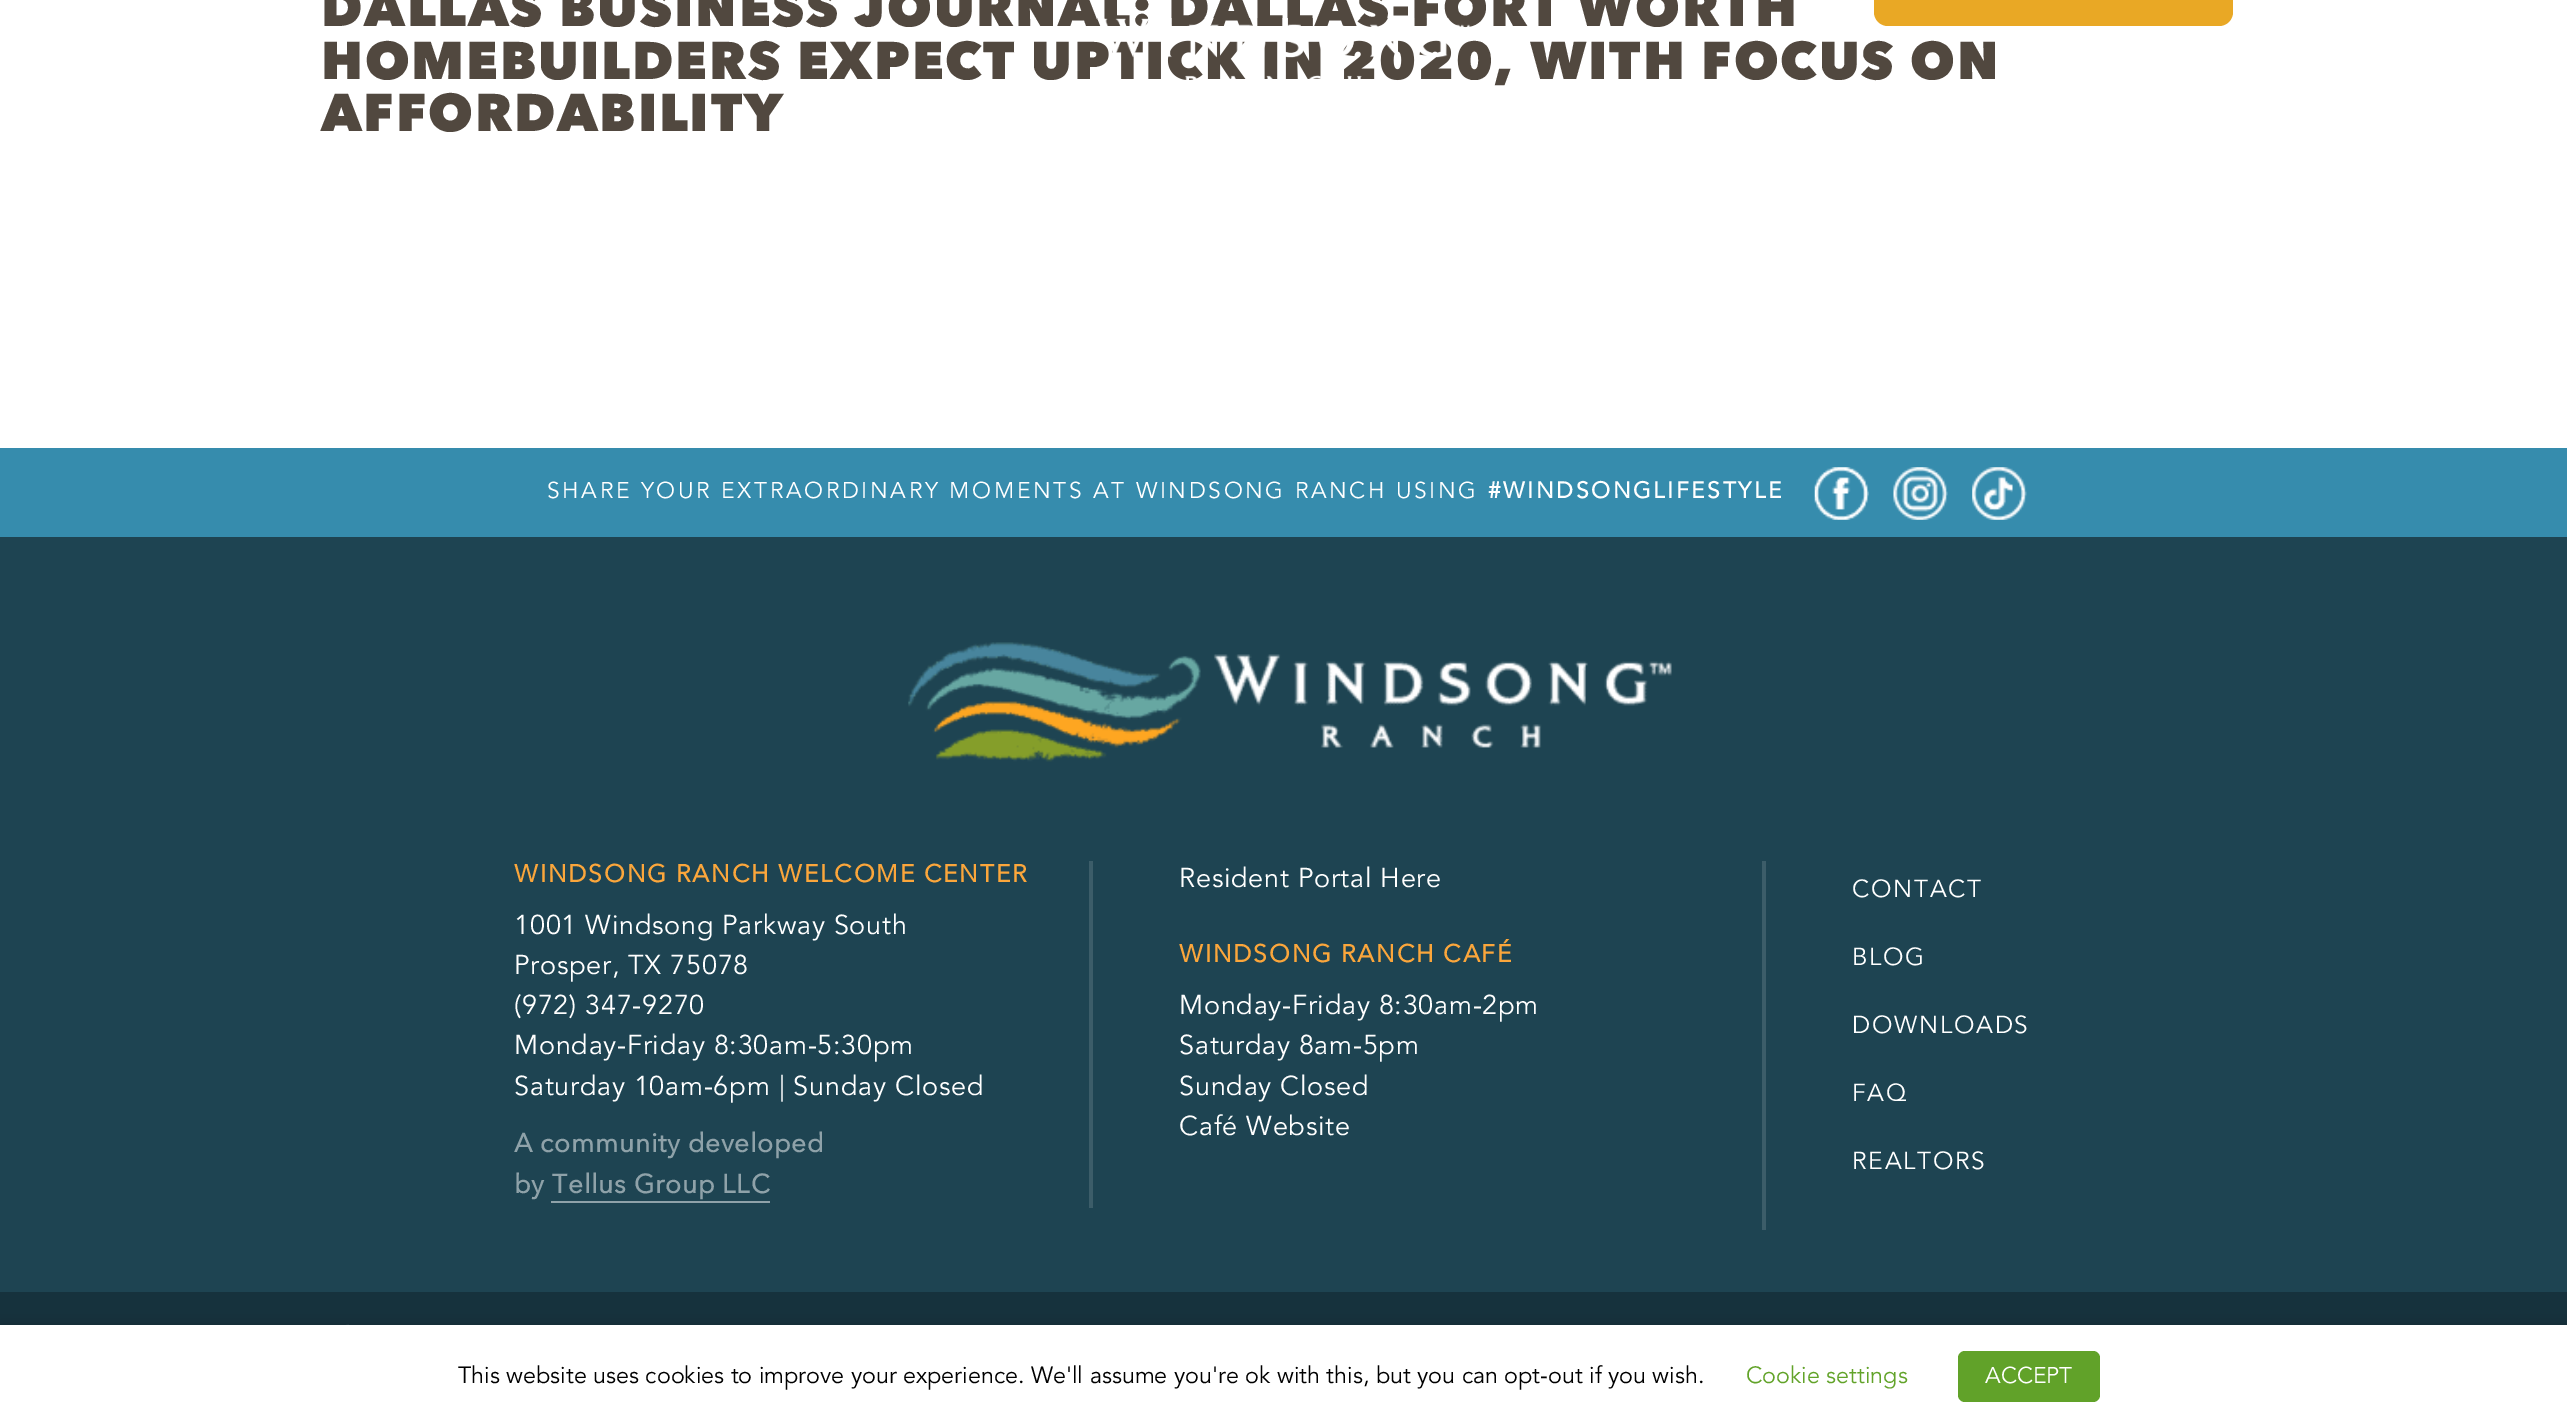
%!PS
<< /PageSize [2567 1427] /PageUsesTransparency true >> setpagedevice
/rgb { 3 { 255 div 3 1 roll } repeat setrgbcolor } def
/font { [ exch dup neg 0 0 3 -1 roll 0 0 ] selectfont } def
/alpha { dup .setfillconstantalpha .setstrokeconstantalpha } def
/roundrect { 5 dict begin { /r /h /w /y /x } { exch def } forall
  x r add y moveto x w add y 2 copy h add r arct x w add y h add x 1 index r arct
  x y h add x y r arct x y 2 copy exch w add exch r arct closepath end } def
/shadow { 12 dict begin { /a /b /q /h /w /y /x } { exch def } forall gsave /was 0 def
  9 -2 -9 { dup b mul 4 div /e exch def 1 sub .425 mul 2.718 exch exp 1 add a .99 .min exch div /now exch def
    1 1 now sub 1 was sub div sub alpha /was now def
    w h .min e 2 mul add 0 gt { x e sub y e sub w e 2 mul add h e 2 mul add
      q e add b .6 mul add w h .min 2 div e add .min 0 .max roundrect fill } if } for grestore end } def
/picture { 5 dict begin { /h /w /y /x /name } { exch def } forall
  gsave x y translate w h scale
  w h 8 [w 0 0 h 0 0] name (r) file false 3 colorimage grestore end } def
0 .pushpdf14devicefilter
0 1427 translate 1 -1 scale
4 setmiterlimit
255 255 255 rgb
0 0 2567 1427 rectfill
233 168 37 rgb
1874 -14 359 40 14 roundrect fill
54 140 173 rgb
0 448 2567 89 rectfill
(img/2.rgb) 1814 467 55 53 picture
(img/3.rgb) 1893 467 55 53 picture
(img/4.rgb) 1972 467 55 53 picture
30 68 82 rgb
0 537 2567 755 rectfill
(img/5.rgb) 908 642 764 120 picture
[
  [1089 861 4 347 60 93 105]
  [551 1201 219 2 143 162 169]
  [1762 861 4 369 60 93 105]
  [0 1292 2567 33 22 50 61]
] { aload pop rgb rectfill } forall
(img/6.rgb) 346 1324 3 1 picture
0 0 0 rgb
0 1334 2567 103 0 9 0.5 shadow
255 255 255 rgb
0 1325 2567 102 rectfill
97 162 41 rgb
1958 1351 142 51 7 roundrect fill
/AvenirNext-Black 52.5 font
81 72 63 rgb
321 26 moveto 1.75 0 (DALLAS BUSINESS JOURNAL: DALLAS-FORT WORTH) ashow
321 79 moveto 1.75 0 (HOMEBUILDERS EXPECT UPTICK IN 2020, WITH FOCUS ON) ashow
(img/1.rgb) 1097 18 373 63 picture
321 131 moveto 1.75 0 (AFFORDABILITY) ashow
/Avenir-Regular 22.75 font
255 255 255 rgb
547 498 moveto 2.62 0 (SHARE YOUR EXTRAORDINARY MOMENTS AT WINDSONG RANCH USING) ashow
/Avenir-Bold 22.75 font
1488 498 moveto 2.62 0 (#WINDSONGLIFESTYLE) ashow
/AvenirNext-Bold 24.5 font
251 166 59 rgb
514 882 moveto 1.75 0 (WINDSONG RANCH WELCOME CENTER) ashow
/Avenir-Regular 27.1 font
255 255 255 rgb
514 934 moveto 0.7 0 (1001 Windsong Parkway South) ashow
514 974 moveto 0.7 0 (Prosper, TX 75078) ashow
514 1014 moveto 0.7 0 (\(972\) 347-9270) ashow
514 1054 moveto 0.7 0 (Monday-Friday 8:30am-5:30pm) ashow
514 1095 moveto 0.7 0 (Saturday 10am-6pm | Sunday Closed) ashow
/AvenirNext-Bold 26.25 font
143 162 169 rgb
514 1152 moveto 0.7 0 (A community developed) ashow
514 1193 moveto 0.7 0 (by Tellus Group LLC) ashow
/Avenir-Regular 27.1 font
255 255 255 rgb
1179 887 moveto 0.7 0 (Resident Portal Here) ashow
/AvenirNext-Bold 24.5 font
251 166 59 rgb
1179 962 moveto 1.75 0 (WINDSONG RANCH CAFÉ) ashow
/Avenir-Regular 27.1 font
255 255 255 rgb
1179 1014 moveto 0.7 0 (Monday-Friday 8:30am-2pm) ashow
1179 1054 moveto 0.7 0 (Saturday 8am-5pm) ashow
1179 1095 moveto 0.7 0 (Sunday Closed) ashow
1179 1135 moveto 0.7 0 (Café Website) ashow
/Avenir-Regular 24.5 font
1852 897 moveto 1.75 0 (CONTACT) ashow
1852 965 moveto 1.75 0 (BLOG) ashow
1852 1033 moveto 1.75 0 (DOWNLOADS) ashow
1852 1101 moveto 1.75 0 (FAQ) ashow
1852 1169 moveto 1.75 0 (REALTORS) ashow
/Avenir-Regular 23.33 font
0 0 0 rgb
458 1383 moveto (This website uses cookies to improve your experience. We'll assume you're ok with this, but you can opt-out if you wish.) show
98 163 41 rgb
1746 1383 moveto (Cookie settings) show
/Avenir-Regular 22.75 font
255 255 255 rgb
1985 1383 moveto (ACCEPT) show
.poppdf14devicefilter showpage
